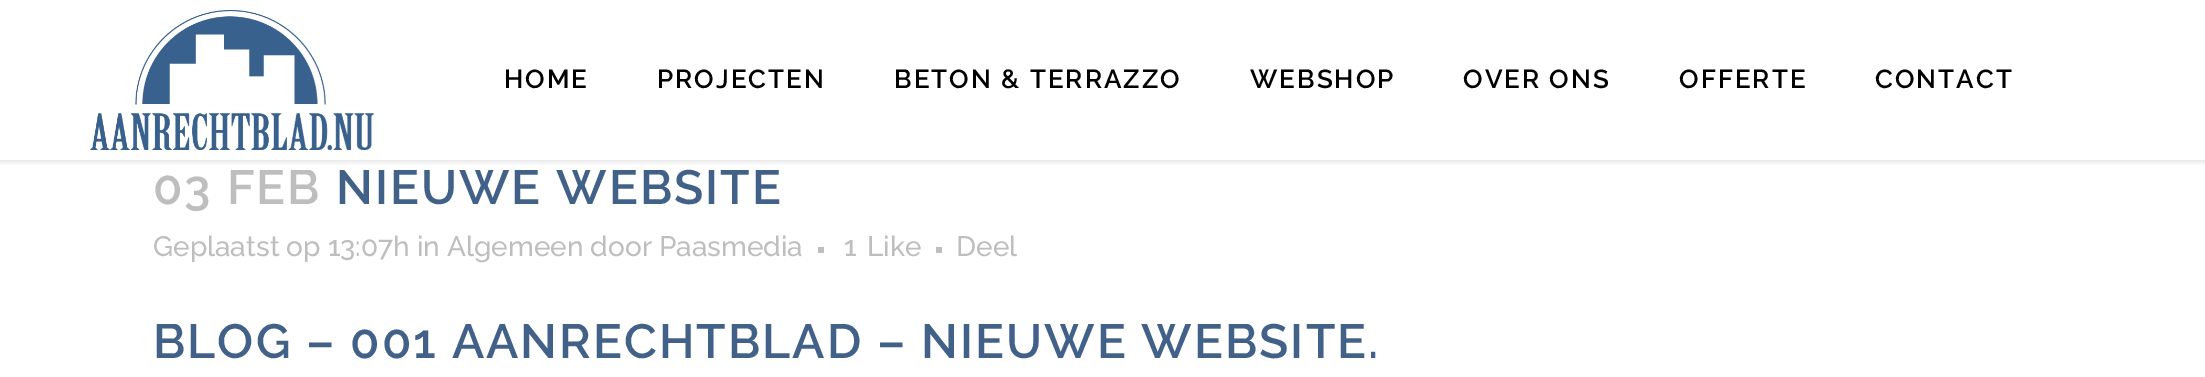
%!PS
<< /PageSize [2205 377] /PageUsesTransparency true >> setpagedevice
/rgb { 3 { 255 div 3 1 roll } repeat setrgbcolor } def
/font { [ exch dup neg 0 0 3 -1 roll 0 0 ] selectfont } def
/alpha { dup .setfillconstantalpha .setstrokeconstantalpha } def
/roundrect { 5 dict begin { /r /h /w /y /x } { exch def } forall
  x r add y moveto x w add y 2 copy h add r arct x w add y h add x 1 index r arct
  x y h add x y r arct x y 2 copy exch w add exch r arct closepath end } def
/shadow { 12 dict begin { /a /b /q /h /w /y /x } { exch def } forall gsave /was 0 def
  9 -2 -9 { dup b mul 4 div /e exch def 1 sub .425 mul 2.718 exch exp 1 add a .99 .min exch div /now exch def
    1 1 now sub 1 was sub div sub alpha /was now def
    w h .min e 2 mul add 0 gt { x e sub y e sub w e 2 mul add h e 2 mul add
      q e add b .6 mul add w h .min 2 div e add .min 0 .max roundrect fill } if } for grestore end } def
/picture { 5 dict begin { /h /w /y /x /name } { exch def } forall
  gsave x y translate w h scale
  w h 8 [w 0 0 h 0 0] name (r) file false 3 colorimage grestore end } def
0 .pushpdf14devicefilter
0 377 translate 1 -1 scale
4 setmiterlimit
255 255 255 rgb
0 0 2205 377 rectfill
gsave
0 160 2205 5 rectclip
0 0 0 rgb
0 2 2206 160 0 3 0.11 shadow
grestore
(img/1.rgb) 90 10 284 140 picture
190 190 190 rgb
818 247 6 6 rectfill
936 247 6 6 rectfill
/Raleway-SemiBold 26 font
0 0 0 rgb
504 88 moveto 2 0 (HOME) ashow
657 88 moveto 2 0 (PROJECTEN) ashow
894 88 moveto 2 0 (BETON & TERRAZZO) ashow
1250 88 moveto 2 0 (WEBSHOP) ashow
1463 88 moveto 2 0 (OVER ONS) ashow
1679 88 moveto 2 0 (OFFERTE) ashow
1875 88 moveto 2 0 (CONTACT) ashow
/Raleway-SemiBold 48 font
190 190 190 rgb
153 204 moveto 2 0 (03 FEB) ashow
65 97 137 rgb
336 204 moveto 2 0 (NIEUWE WEBSITE) ashow
/Raleway-Medium 28 font
190 190 190 rgb
[
  [(Geplaatst op 13:07h in Algemeen door Paasmedia) 153 256]
  [(1) 844 256]
  [(Like) 867 256]
  [(Deel) 956 256]
] { aload pop moveto show } forall
/Raleway-SemiBold 48 font
65 97 137 rgb
153 358 moveto 2 0 (BLOG – 001 AANRECHTBLAD – NIEUWE WEBSITE.) ashow
.poppdf14devicefilter showpage
